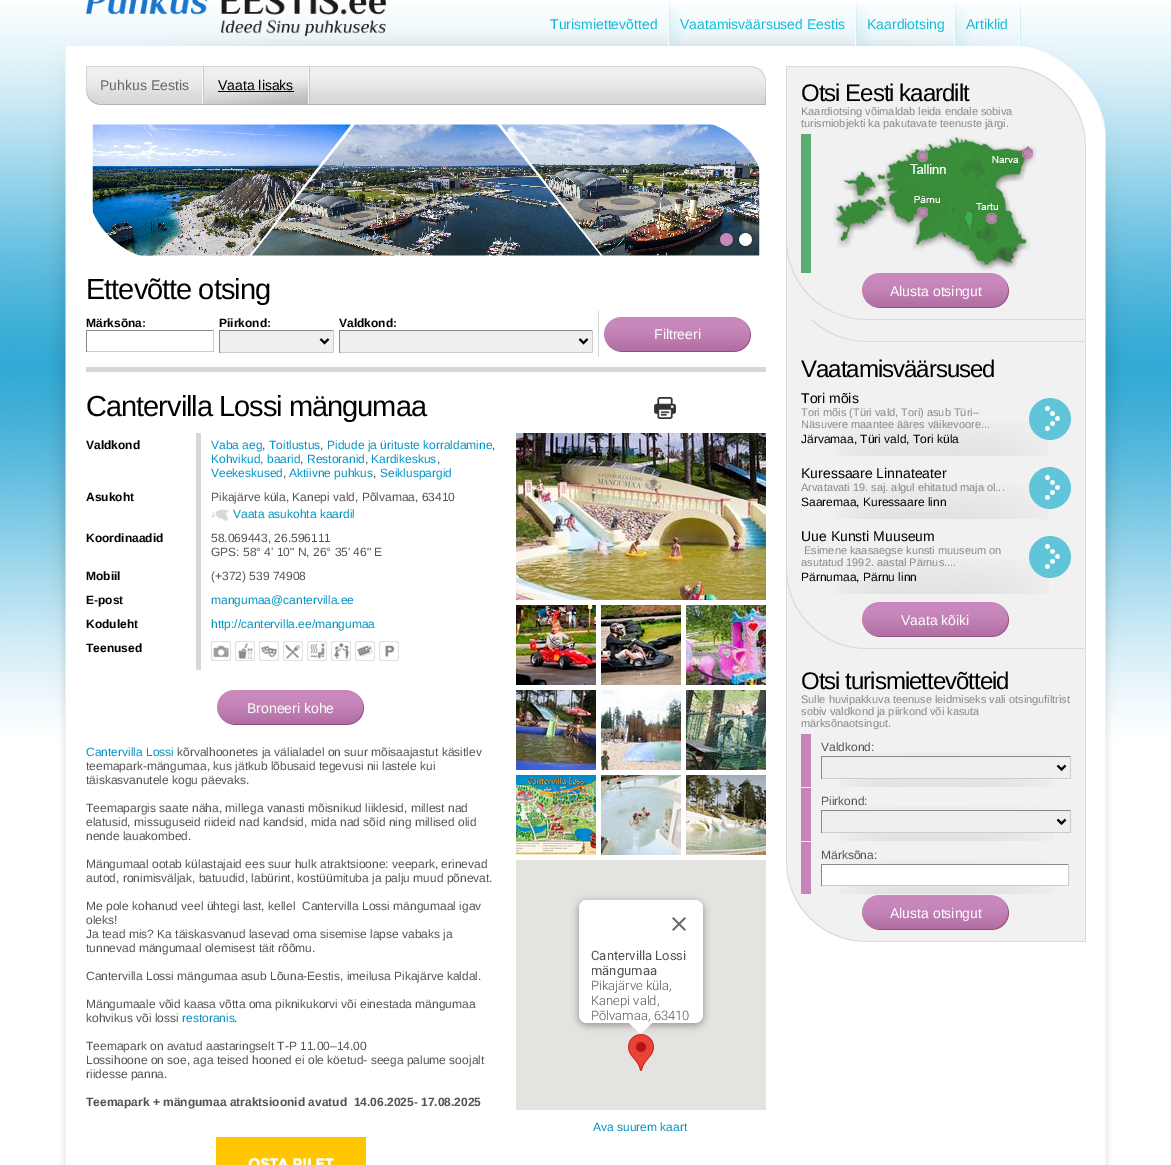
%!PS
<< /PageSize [1171 1165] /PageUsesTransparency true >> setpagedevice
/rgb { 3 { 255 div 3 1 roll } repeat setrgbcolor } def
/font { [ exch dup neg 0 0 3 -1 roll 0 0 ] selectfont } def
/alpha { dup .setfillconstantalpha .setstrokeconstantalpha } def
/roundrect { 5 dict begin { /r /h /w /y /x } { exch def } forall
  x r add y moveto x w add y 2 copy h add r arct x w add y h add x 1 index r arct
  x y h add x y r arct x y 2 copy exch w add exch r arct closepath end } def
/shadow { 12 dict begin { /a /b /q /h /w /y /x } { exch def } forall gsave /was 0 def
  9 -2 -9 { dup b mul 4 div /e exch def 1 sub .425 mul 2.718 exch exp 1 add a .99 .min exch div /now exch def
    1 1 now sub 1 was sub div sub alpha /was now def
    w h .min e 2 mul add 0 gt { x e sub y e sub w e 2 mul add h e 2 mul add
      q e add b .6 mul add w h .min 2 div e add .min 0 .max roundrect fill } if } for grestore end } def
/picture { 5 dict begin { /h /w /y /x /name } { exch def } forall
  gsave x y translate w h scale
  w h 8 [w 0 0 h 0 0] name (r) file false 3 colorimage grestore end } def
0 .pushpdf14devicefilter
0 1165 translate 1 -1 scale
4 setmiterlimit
255 255 255 rgb
0 0 1171 1165 rectfill
(img/1.rgb) 0 4 1171 1161 picture
(img/2.rgb) 86 0 300 36 picture
(img/3.rgb) 668 0 2 46 picture
(img/4.rgb) 670 3 15 43 picture
(img/3.rgb) 855 0 2 46 picture
(img/5.rgb) 857 3 15 43 picture
(img/3.rgb) 954 0 2 46 picture
(img/6.rgb) 956 3 15 43 picture
(img/3.rgb) 1019 0 2 46 picture
(img/7.rgb) 86 66 14 39 picture
(img/8.rgb) 100 66 652 39 picture
(img/9.rgb) 202 67 2 37 picture
(img/10.rgb) 204 80 104 24 picture
0 0 0 rgb
218 91 76 1 rectfill
(img/9.rgb) 308 67 2 37 picture
(img/11.rgb) 752 66 14 39 picture
(img/12.rgb) 92 124 668 132 picture
(img/13.rgb) 711 124 49 45 picture
(img/14.rgb) 92 210 49 46 picture
(img/15.rgb) 718 230 17 18 picture
(img/16.rgb) 737 230 17 18 picture
[
  [86 367 680 5 215 215 215]
  [86 330 128 1 136 136 136]
  [213 330 1 22 204 204 204]
  [86 351 128 1 204 204 204]
  [86 330 1 22 136 136 136]
  [220 331 113 21 239 239 239]
  [219 330 115 1 136 136 136]
  [333 330 1 23 204 204 204]
  [219 352 115 1 204 204 204]
  [219 330 1 23 136 136 136]
] { aload pop rgb rectfill } forall
0 0 0 rgb
2 setlinewidth
320.5 339 moveto 324.5 343 lineto 328.5 339 lineto stroke
[
  [340 331 252 21 239 239 239]
  [339 330 254 1 136 136 136]
  [592 330 1 23 204 204 204]
  [339 352 254 1 204 204 204]
  [339 330 1 23 136 136 136]
] { aload pop rgb rectfill } forall
0 0 0 rgb
579.5 339 moveto 583.5 343 lineto 587.5 339 lineto stroke
215 215 215 rgb
598 311 1 46 rectfill
(img/17.rgb) 604 317 147 35 picture
(img/18.rgb) 654 397 22 22 picture
196 433 5 237 rectfill
(img/19.rgb) 211 509 18 12 picture
(img/20.rgb) 211 641 20 20 picture
(img/21.rgb) 235 641 20 20 picture
(img/22.rgb) 259 641 20 20 picture
(img/23.rgb) 283 641 20 20 picture
(img/24.rgb) 307 641 20 20 picture
(img/25.rgb) 331 641 20 20 picture
(img/26.rgb) 355 641 20 20 picture
(img/27.rgb) 379 641 20 20 picture
(img/17.rgb) 217 690 147 35 picture
(img/28.rgb) 216 1137 150 28 picture
(img/29.rgb) 516 433 250 167 picture
(img/30.rgb) 516 605 80 80 picture
(img/31.rgb) 601 605 80 80 picture
(img/32.rgb) 686 605 80 80 picture
(img/33.rgb) 516 690 80 80 picture
(img/34.rgb) 601 690 80 80 picture
(img/35.rgb) 686 690 80 80 picture
(img/36.rgb) 516 775 80 80 picture
(img/37.rgb) 601 775 80 80 picture
(img/38.rgb) 686 775 80 80 picture
229 227 223 rgb
516 860 250 250 rectfill
(img/40.rgb) 628 1034 26 37 picture
0 0 0 rgb
578 901 126 125 9 3.5 0.3 shadow
255 255 255 rgb
579 900 124 123 8 roundrect fill
(img/39.rgb) 672 917 14 14 picture
629 1022 moveto 629 1023 lineto 640.5 1034 lineto 653 1022 lineto closepath fill
(img/41.rgb) 786 66 300 583 picture
(img/42.rgb) 787 245 298 75 picture
92 173 115 rgb
801 134 10 139 rectfill
(img/43.rgb) 833 136 203 135 picture
(img/44.rgb) 862 273 147 35 picture
(img/45.rgb) 811 320 274 22 picture
(img/42.rgb) 787 574 298 75 picture
(img/46.rgb) 835 421 214 35 picture
(img/47.rgb) 1029 398 42 42 picture
(img/46.rgb) 835 484 214 35 picture
(img/48.rgb) 1029 467 42 42 picture
(img/46.rgb) 835 559 214 35 picture
(img/47.rgb) 1029 536 42 42 picture
(img/44.rgb) 862 602 147 35 picture
(img/49.rgb) 786 649 300 293 picture
(img/46.rgb) 840 752 214 35 picture
[
  [801 734 10 53 198 133 185]
  [822 757 248 21 239 239 239]
  [821 756 250 1 136 136 136]
  [1070 756 1 23 204 204 204]
  [821 778 250 1 204 204 204]
  [821 756 1 23 136 136 136]
] { aload pop rgb rectfill } forall
0 0 0 rgb
1057.5 765.5 moveto 1061.5 769.5 lineto 1065.5 765.5 lineto stroke
(img/46.rgb) 840 806 214 35 picture
[
  [801 788 10 53 198 133 185]
  [822 811 248 21 239 239 239]
  [821 810 250 1 136 136 136]
  [1070 810 1 23 204 204 204]
  [821 832 250 1 204 204 204]
  [821 810 1 23 136 136 136]
] { aload pop rgb rectfill } forall
0 0 0 rgb
1057.5 819.5 moveto 1061.5 823.5 lineto 1065.5 819.5 lineto stroke
(img/46.rgb) 840 859 214 35 picture
[
  [801 842 10 52 198 133 185]
  [822 865 246 20 255 255 255]
  [821 864 248 1 136 136 136]
  [1068 864 1 22 204 204 204]
  [821 885 248 1 204 204 204]
  [821 864 1 22 136 136 136]
] { aload pop rgb rectfill } forall
(img/44.rgb) 862 895 147 35 picture
/LiberationSans-Regular 14 font
19 186 215 rgb
[
  [(Turismiettevõtted) 550 29]
  [(Vaatamisväärsused Eestis) 680 29]
  [(Kaardiotsing) 867 29]
  [(Artiklid) 966 29]
] { aload pop moveto show } forall
102 102 102 rgb
100 90 moveto (Puhkus Eestis) show
0 0 0 rgb
218 90 moveto (Vaata lisaks) show
/LiberationSans-Regular 29 font
86 299 moveto -1 0 (Ettevõtte otsing) ashow
/LiberationSans-Bold 12 font
[
  [(Märksõna:) 86 327]
  [(Piirkond:) 219 327]
  [(Valdkond:) 339 327]
] { aload pop moveto show } forall
/LiberationSans-Regular 14 font
255 255 255 rgb
654 339 moveto (Filtreeri) show
/LiberationSans-Regular 29 font
0 0 0 rgb
86 416 moveto -1 0 (Cantervilla Lossi mängumaa) ashow
/LiberationSans-Bold 12 font
86 449 moveto (Valdkond) show
/LiberationSans-Regular 12 font
0 147 195 rgb
211 449 moveto (Vaba aeg) show
83 83 83 rgb
262 449 moveto (,) show
0 147 195 rgb
269 449 moveto (Toitlustus) show
83 83 83 rgb
320 449 moveto (,) show
0 147 195 rgb
327 449 moveto (Pidude ja ürituste korraldamine) show
83 83 83 rgb
492 449 moveto (,) show
0 147 195 rgb
211 463 moveto (Kohvikud, baarid) show
83 83 83 rgb
300 463 moveto (,) show
0 147 195 rgb
307 463 moveto (Restoranid) show
83 83 83 rgb
365 463 moveto (,) show
0 147 195 rgb
371 463 moveto (Kardikeskus) show
83 83 83 rgb
437 463 moveto (,) show
0 147 195 rgb
211 477 moveto (Veekeskused) show
83 83 83 rgb
283 477 moveto (,) show
0 147 195 rgb
289 477 moveto (Aktiivne puhkus) show
83 83 83 rgb
373 477 moveto (,) show
0 147 195 rgb
380 477 moveto (Seikluspargid) show
/LiberationSans-Bold 12 font
0 0 0 rgb
86 501 moveto (Asukoht) show
/LiberationSans-Regular 12 font
83 83 83 rgb
211 501 moveto (Pikajärve küla, Kanepi vald, Põlvamaa, 63410) show
0 147 195 rgb
233 518 moveto (Vaata asukohta kaardil) show
/LiberationSans-Bold 12 font
0 0 0 rgb
86 542 moveto (Koordinaadid) show
/LiberationSans-Regular 12 font
83 83 83 rgb
211 542 moveto (58.069443, 26.596111) show
211 556 moveto (GPS: 58° 4' 10" N, 26° 35' 46" E) show
/LiberationSans-Bold 12 font
0 0 0 rgb
86 580 moveto (Mobiil) show
/LiberationSans-Regular 12 font
83 83 83 rgb
211 580 moveto (\(+372\) 539 74908) show
/LiberationSans-Bold 12 font
0 0 0 rgb
86 604 moveto (E-post) show
/LiberationSans-Regular 12 font
0 147 195 rgb
211 604 moveto (mangumaa@cantervilla.ee) show
/LiberationSans-Bold 12 font
0 0 0 rgb
86 628 moveto (Koduleht) show
/LiberationSans-Regular 12 font
0 147 195 rgb
211 628 moveto (http://cantervilla.ee/mangumaa) show
/LiberationSans-Bold 12 font
0 0 0 rgb
86 652 moveto (Teenused) show
/LiberationSans-Regular 14 font
255 255 255 rgb
247 713 moveto (Broneeri kohe) show
/LiberationSans-Regular 12 font
0 147 195 rgb
86 756 moveto (Cantervilla Lossi) show
83 83 83 rgb
[
  [(kõrvalhoonetes ja välialadel on suur mõisaajastut käsitlev) 177 756]
  [(teemapark-mängumaa, kus jätkub lõbusaid tegevusi nii lastele kui) 86 770]
  [(täiskasvanutele kogu päevaks.) 86 784]
  [(Teemapargis saate näha, millega vanasti mõisnikud liiklesid, millest nad) 86 812]
  [(elatusid, missuguseid riideid nad kandsid, mida nad sõid ning millised olid) 86 826]
  [(nende lauakombed.) 86 840]
  [(Mängumaal ootab külastajaid ees suur hulk atraktsioone: veepark, erinevad) 86 868]
  [(autod, ronimisväljak, batuudid, labürint, kostüümituba ja palju muud põnevat.) 86 882]
  [(Me pole kohanud veel ühtegi last, kellel  Cantervilla Lossi mängumaal igav) 86 910]
  [(oleks!) 86 924]
  [(Ja tead mis? Ka täiskasvanud lasevad oma sisemise lapse vabaks ja) 86 938]
  [(tunnevad mängumaal olemisest täit rõõmu.) 86 952]
  [(Cantervilla Lossi mängumaa asub Lõuna-Eestis, imeilusa Pikajärve kaldal.) 86 980]
  [(Mängumaale võid kaasa võtta oma piknikukorvi või einestada mängumaa) 86 1008]
  [(kohvikus või lossi) 86 1022]
] { aload pop moveto show } forall
0 147 195 rgb
182 1022 moveto (restoranis) show
83 83 83 rgb
[
  [(.) 234 1022]
  [(Teemapark on avatud aastaringselt T-P 11.00–14.00) 86 1050]
  [(Lossihoone on soe, aga teised hooned ei ole köetud- seega palume soojalt) 86 1064]
  [(riidesse panna.) 86 1078]
] { aload pop moveto show } forall
/LiberationSans-Bold 12 font
86 1106 moveto (Teemapark + mängumaa atraktsioonid avatud  14.06.2025- 17.08.2025) show
/Roboto-Regular 13 font
591 960 moveto (Cantervilla Lossi) show
591 975 moveto (mängumaa) show
/Roboto-Light 13 font
[
  [(Pikajärve küla,) 591 990]
  [(Kanepi vald,) 591 1005]
  [(Põlvamaa, 63410) 591 1020]
] { aload pop moveto show } forall
/LiberationSans-Regular 12 font
0 147 195 rgb
593 1131 moveto (Ava suurem kaart) show
/LiberationSans-Regular 24 font
0 0 0 rgb
801 101 moveto -1 0 (Otsi Eesti kaardilt) ashow
/LiberationSans-Regular 11 font
136 136 136 rgb
801 115 moveto (Kaardiotsing võimaldab leida endale sobiva) show
801 127 moveto (turismiobjekti ka pakutavate teenuste järgi.) show
/LiberationSans-Regular 14 font
255 255 255 rgb
890 296 moveto (Alusta otsingut) show
/LiberationSans-Regular 24 font
0 0 0 rgb
801 377 moveto -1 0 (Vaatamisväärsused) ashow
/LiberationSans-Regular 14 font
801 403 moveto (Tori mõis) show
/LiberationSans-Regular 11 font
136 136 136 rgb
801 416 moveto (Tori mõis \(Türi vald, Tori\) asub Türi–) show
801 428 moveto (Näsuvere maantee ääres väikevoore...) show
/LiberationSans-Regular 12 font
0 0 0 rgb
801 443 moveto (Järvamaa, Türi vald, Tori küla) show
/LiberationSans-Regular 14 font
801 478 moveto (Kuressaare Linnateater) show
/LiberationSans-Regular 11 font
136 136 136 rgb
801 491 moveto (Arvatavati 19. saj. algul ehitatud maja ol...) show
/LiberationSans-Regular 12 font
0 0 0 rgb
801 506 moveto (Saaremaa, Kuressaare linn) show
/LiberationSans-Regular 14 font
801 541 moveto (Uue Kunsti Muuseum) show
/LiberationSans-Regular 11 font
136 136 136 rgb
804 554 moveto (Esimene kaasaegse kunsti muuseum on) show
801 566 moveto (asutatud 1992. aastal Pärnus....) show
/LiberationSans-Regular 12 font
0 0 0 rgb
801 581 moveto (Pärnumaa, Pärnu linn) show
/LiberationSans-Regular 14 font
255 255 255 rgb
901 625 moveto (Vaata kõiki) show
/LiberationSans-Regular 24 font
0 0 0 rgb
801 689 moveto -1 0 (Otsi turismiettevõtteid) ashow
/LiberationSans-Regular 11 font
136 136 136 rgb
[
  [(Sulle huvipakkuva teenuse leidmiseks vali otsingufiltrist) 801 703]
  [(sobiv valdkond ja piirkond või kasuta) 801 715]
  [(märksõnaotsingut.) 801 727]
] { aload pop moveto show } forall
/LiberationSans-Regular 12 font
83 83 83 rgb
[
  [(Valdkond:) 821 751]
  [(Piirkond:) 821 805]
  [(Märksõna:) 821 859]
] { aload pop moveto show } forall
/LiberationSans-Regular 14 font
255 255 255 rgb
890 918 moveto (Alusta otsingut) show
.poppdf14devicefilter showpage
